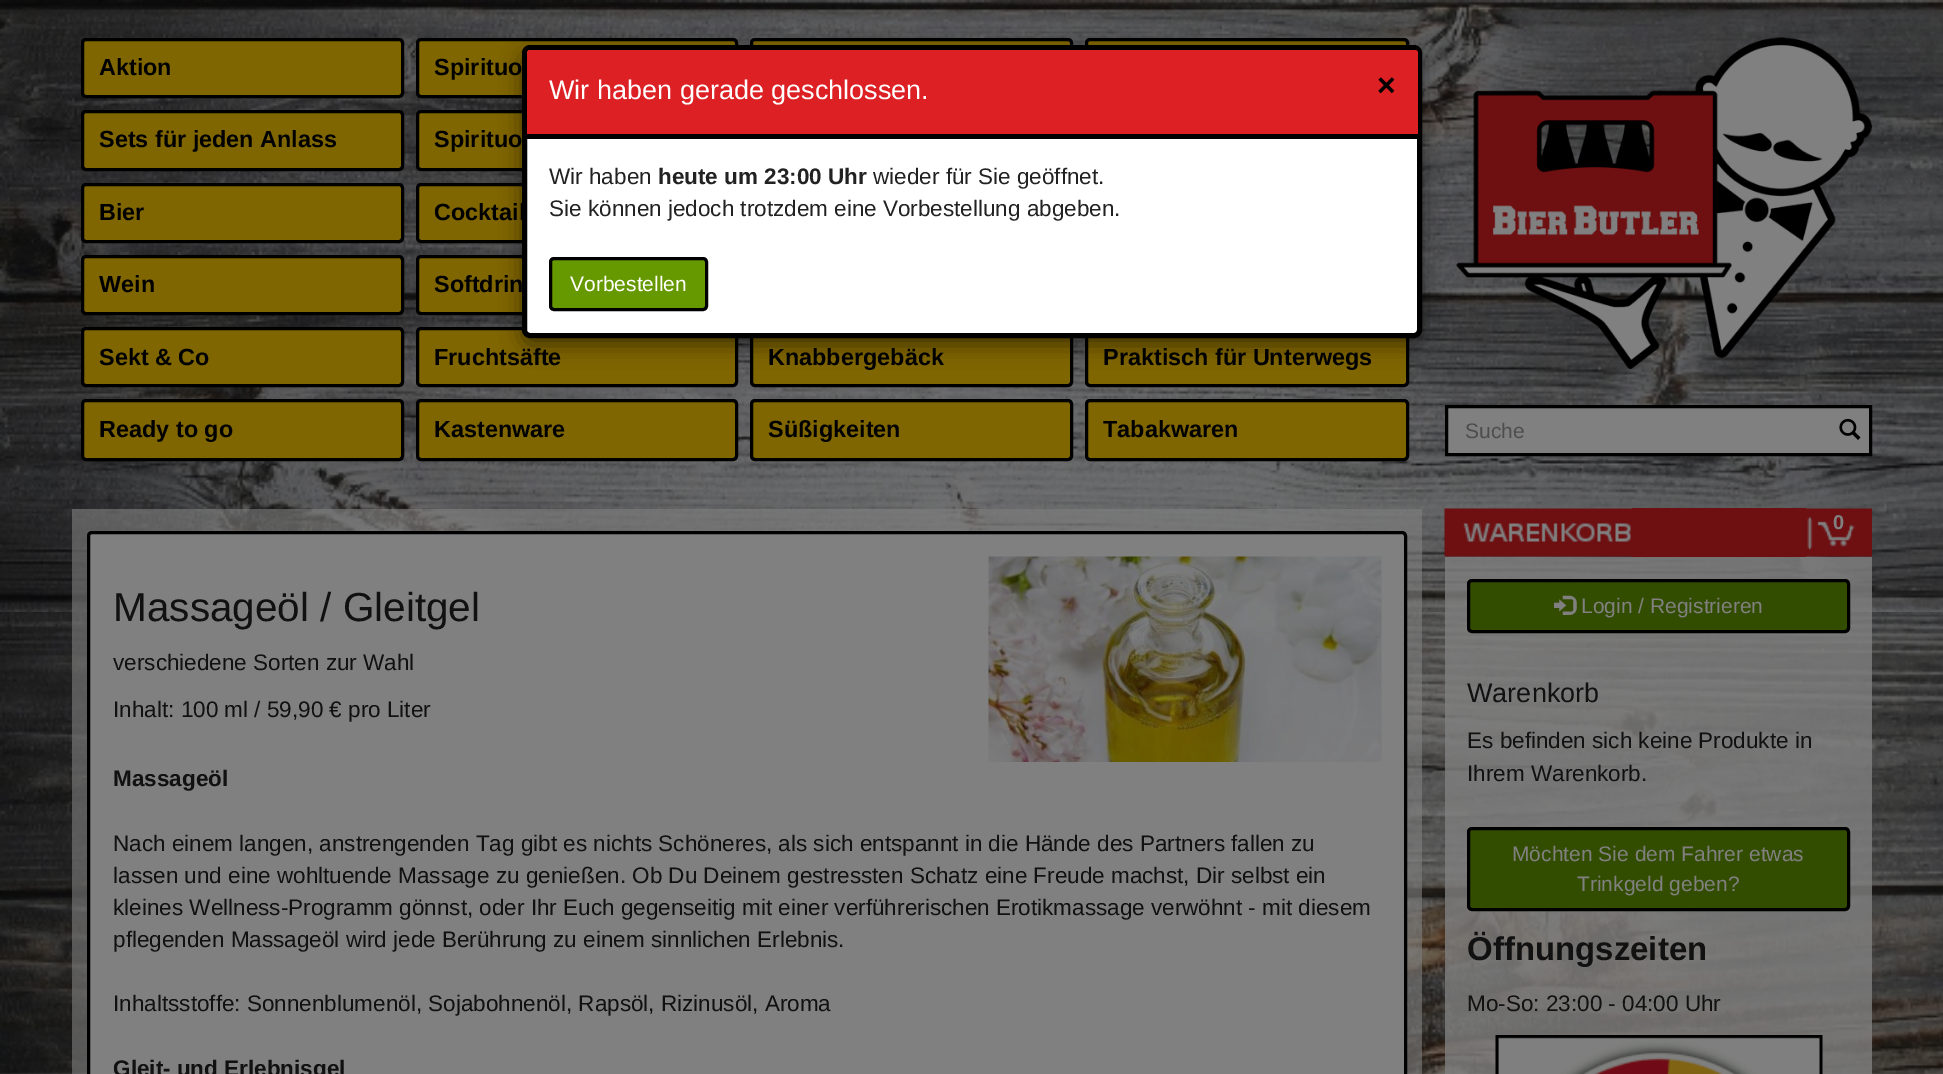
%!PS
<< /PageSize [1943 1074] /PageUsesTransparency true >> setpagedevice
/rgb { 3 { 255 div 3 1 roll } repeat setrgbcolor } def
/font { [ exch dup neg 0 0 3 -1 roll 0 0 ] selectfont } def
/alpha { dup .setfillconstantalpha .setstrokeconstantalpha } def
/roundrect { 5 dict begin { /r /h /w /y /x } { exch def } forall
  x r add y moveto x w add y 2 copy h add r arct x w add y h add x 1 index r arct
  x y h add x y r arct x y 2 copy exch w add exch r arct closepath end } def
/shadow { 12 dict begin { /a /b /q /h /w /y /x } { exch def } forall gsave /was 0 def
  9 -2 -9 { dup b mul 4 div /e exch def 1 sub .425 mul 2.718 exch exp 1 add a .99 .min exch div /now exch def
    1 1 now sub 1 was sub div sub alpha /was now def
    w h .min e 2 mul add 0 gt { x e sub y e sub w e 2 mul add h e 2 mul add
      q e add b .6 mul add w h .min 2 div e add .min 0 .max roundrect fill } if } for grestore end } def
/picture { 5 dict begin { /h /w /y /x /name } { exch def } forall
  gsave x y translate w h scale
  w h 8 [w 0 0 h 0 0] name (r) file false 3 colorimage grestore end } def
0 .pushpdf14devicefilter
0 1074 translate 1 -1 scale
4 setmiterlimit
255 255 255 rgb
0 0 1943 1074 rectfill
(img/1.rgb) 0 0 1943 1074 picture
(img/2.rgb) 0 1072 1943 2 picture
128 102 0 rgb
82.5 39.5 320 57 3.5 roundrect gsave fill grestore
0 0 0 rgb
3 setlinewidth
stroke
128 102 0 rgb
82.5 111.5 320 58 3.5 roundrect gsave fill grestore
0 0 0 rgb
stroke
128 102 0 rgb
82.5 184.5 320 57 3.5 roundrect gsave fill grestore
0 0 0 rgb
stroke
128 102 0 rgb
82.5 256.5 320 57 3.5 roundrect gsave fill grestore
0 0 0 rgb
stroke
128 102 0 rgb
82.5 328.5 320 57 3.5 roundrect gsave fill grestore
0 0 0 rgb
stroke
128 102 0 rgb
82.5 400.5 320 59 3.5 roundrect gsave fill grestore
0 0 0 rgb
stroke
128 102 0 rgb
417.5 39.5 319 57 3.5 roundrect gsave fill grestore
0 0 0 rgb
stroke
128 102 0 rgb
417.5 111.5 319 58 3.5 roundrect gsave fill grestore
0 0 0 rgb
stroke
128 102 0 rgb
417.5 184.5 319 57 3.5 roundrect gsave fill grestore
0 0 0 rgb
stroke
128 102 0 rgb
417.5 256.5 319 57 3.5 roundrect gsave fill grestore
0 0 0 rgb
stroke
128 102 0 rgb
417.5 328.5 319 57 3.5 roundrect gsave fill grestore
0 0 0 rgb
stroke
128 102 0 rgb
417.5 400.5 319 59 3.5 roundrect gsave fill grestore
0 0 0 rgb
stroke
128 102 0 rgb
751.5 39.5 320 57 3.5 roundrect gsave fill grestore
0 0 0 rgb
stroke
128 102 0 rgb
751.5 328.5 320 57 3.5 roundrect gsave fill grestore
0 0 0 rgb
stroke
128 102 0 rgb
751.5 400.5 320 59 3.5 roundrect gsave fill grestore
0 0 0 rgb
stroke
128 102 0 rgb
1086.5 39.5 321 57 3.5 roundrect gsave fill grestore
0 0 0 rgb
stroke
128 102 0 rgb
1086.5 328.5 321 57 3.5 roundrect gsave fill grestore
0 0 0 rgb
stroke
128 102 0 rgb
1086.5 400.5 321 59 3.5 roundrect gsave fill grestore
0 0 0 rgb
stroke
(img/3.rgb) 1456 37 416 332 picture
128 128 128 rgb
1446.5 406.5 moveto 1870.5 406.5 lineto 1870.5 454.5 lineto 1446.5 454.5 lineto closepath gsave fill grestore
0 0 0 rgb
stroke
(img/4.rgb) 1839 418 22 22 picture
0.6 alpha
128 128 128 rgb
72 509 1350 565 rectfill
1 alpha
88.5 532.5 1317 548 3.5 roundrect gsave fill grestore
0 0 0 rgb
stroke
(img/5.rgb) 988 556 394 206 picture
(img/6.rgb) 1444 508 188 49 picture
110 16 18 rgb
1632 508 174 49 rectfill
(img/7.rgb) 1806 508 66 49 picture
0.8 alpha
128 128 128 rgb
1445 557 427 517 rectfill
1 alpha
51 77 0 rgb
1468.5 580.5 380 51 3.5 roundrect gsave fill grestore
0 0 0 rgb
stroke
(img/8.rgb) 1554 595 23 20 picture
51 77 0 rgb
1468.5 828.5 380 81 3.5 roundrect gsave fill grestore
0 0 0 rgb
stroke
(img/9.rgb) 1495 1035 328 39 picture
522 53 900 292 8 11 0.5 shadow
/LiberationSans-Bold 23.4 font
[
  [(Aktion) 99 75]
  [(Sets für jeden Anlass) 99 147]
  [(Bier) 99 220]
  [(Wein) 99 292]
  [(Sekt & Co) 99 365]
  [(Ready to go) 99 437]
  [(Spirituo) 434 75]
  [(Spirituo) 434 147]
  [(Cocktail) 434 220]
  [(Softdrin) 434 292]
  [(Fruchtsäfte) 434 365]
  [(Kastenware) 434 437]
  [(Knabbergebäck) 768 365]
  [(Süßigkeiten) 768 437]
  [(Praktisch für Unterwegs) 1103 365]
  [(Tabakwaren) 1103 437]
] { aload pop moveto show } forall
/LiberationSans-Regular 21 font
77 77 77 rgb
1465 438 moveto (Suche) show
/LiberationSans-Regular 40.5 font
17 17 17 rgb
113 621 moveto (Massageöl / Gleitgel) show
/LiberationSans-Regular 22.5 font
113 670 moveto (verschiedene Sorten zur Wahl) show
113 717 moveto (Inhalt: 100 ml / 59,90 € pro Liter) show
/LiberationSans-Bold 22.5 font
113 786 moveto (Massageöl) show
/LiberationSans-Regular 22.5 font
[
  [(Nach einem langen, anstrengenden Tag gibt es nichts Schöneres, als sich entspannt in die Hände des Partners fallen zu) 113 851]
  [(lassen und eine wohltuende Massage zu genießen. Ob Du Deinem gestressten Schatz eine Freude machst, Dir selbst ein) 113 883]
  [(kleines Wellness-Programm gönnst, oder Ihr Euch gegenseitig mit einer verführerischen Erotikmassage verwöhnt - mit diesem) 113 915]
  [(pflegenden Massageöl wird jede Berührung zu einem sinnlichen Erlebnis.) 113 947]
  [(Inhaltsstoffe: Sonnenblumenöl, Sojabohnenöl, Rapsöl, Rizinusöl, Aroma) 113 1011]
] { aload pop moveto show } forall
/LiberationSans-Bold 22.5 font
113 1076 moveto (Gleit- und Erlebnisgel) show
/LiberationSans-Bold 20 font
128 128 128 rgb
1833 529 moveto (0) show
/LiberationSans-Regular 21 font
1581 613 moveto (Login / Registrieren) show
/LiberationSans-Regular 27 font
17 17 17 rgb
1467 702 moveto (Warenkorb) show
/LiberationSans-Regular 22.5 font
1467 748 moveto (Es befinden sich keine Produkte in) show
1467 781 moveto (Ihrem Warenkorb.) show
/LiberationSans-Regular 21 font
128 128 128 rgb
1512 861 moveto (Möchten Sie dem Fahrer etwas) show
1577 891 moveto (Trinkgeld geben?) show
/LiberationSans-Bold 33 font
17 17 17 rgb
1467 960 moveto (Öffnungszeiten) show
/LiberationSans-Regular 22.5 font
1467 1011 moveto (Mo-So: 23:00 - 04:00 Uhr) show
255 255 255 rgb
524.5 47.5 895 288 5.5 roundrect gsave fill grestore
0 0 0 rgb
5 setlinewidth
stroke
220 32 36 rgb
530 50 moveto 1415 50 lineto 1416.5 50 1418 51.5 1418 53 curveto 1418 138 lineto 527 138 lineto 527 53 lineto 527 51.5 528.5 50 530 50 curveto closepath fill
0 0 0 rgb
527 134 891 5 rectfill
/LiberationSans-Regular 27 font
255 255 255 rgb
549 99 moveto (Wir haben gerade geschlossen.) show
/LiberationSans-Bold 32 font
0 0 0 rgb
1377 96 moveto (×) show
/LiberationSans-Regular 22.5 font
34 34 34 rgb
549 184 moveto (Wir haben) show
/LiberationSans-Bold 22.5 font
658 184 moveto (heute um 23:00 Uhr) show
/LiberationSans-Regular 22.5 font
873 184 moveto (wieder für Sie geöffnet.) show
549 216 moveto (Sie können jedoch trotzdem eine Vorbestellung abgeben.) show
102 153 0 rgb
550.5 258.5 156 51 3.5 roundrect gsave fill grestore
0 0 0 rgb
3 setlinewidth
stroke
/LiberationSans-Regular 21 font
255 255 255 rgb
570 291 moveto (Vorbestellen) show
.poppdf14devicefilter showpage
